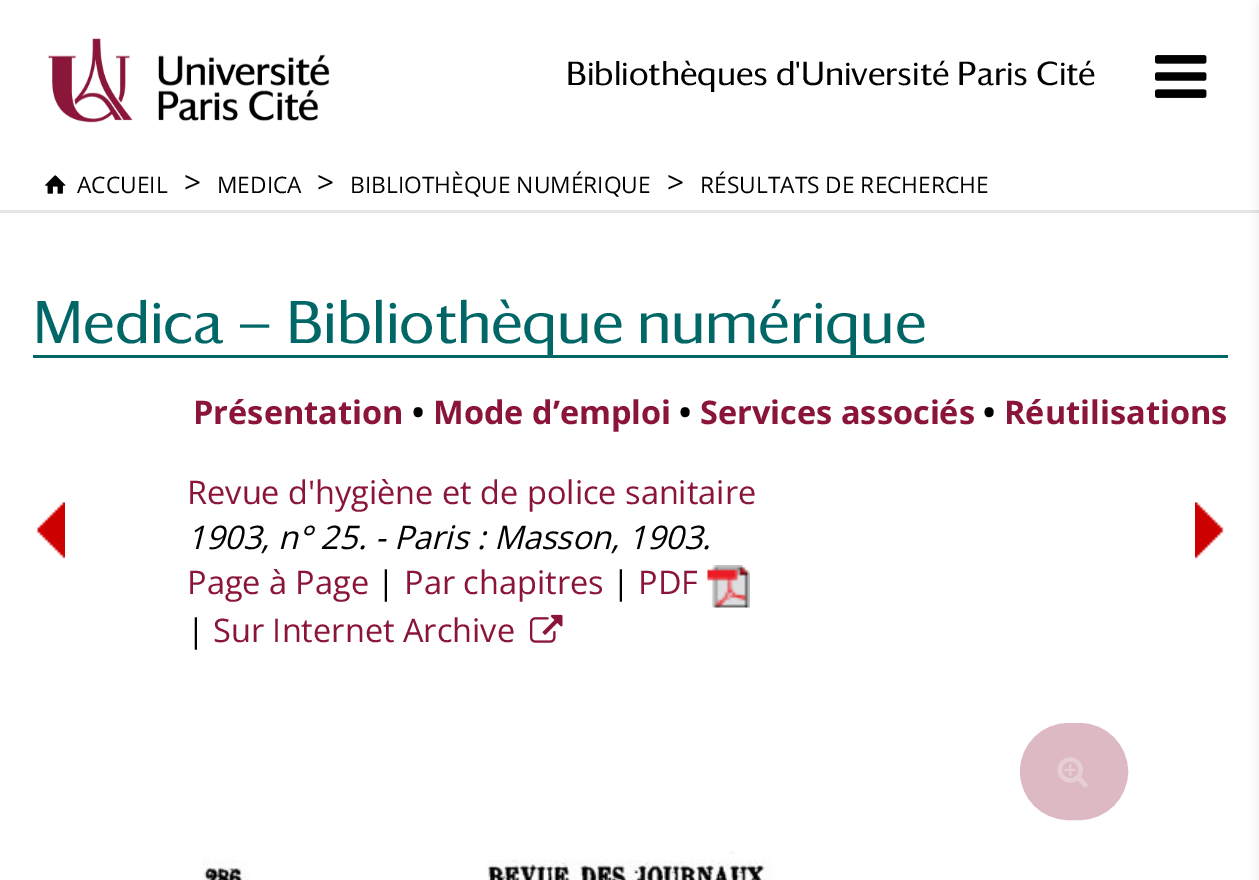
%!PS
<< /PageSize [1259 880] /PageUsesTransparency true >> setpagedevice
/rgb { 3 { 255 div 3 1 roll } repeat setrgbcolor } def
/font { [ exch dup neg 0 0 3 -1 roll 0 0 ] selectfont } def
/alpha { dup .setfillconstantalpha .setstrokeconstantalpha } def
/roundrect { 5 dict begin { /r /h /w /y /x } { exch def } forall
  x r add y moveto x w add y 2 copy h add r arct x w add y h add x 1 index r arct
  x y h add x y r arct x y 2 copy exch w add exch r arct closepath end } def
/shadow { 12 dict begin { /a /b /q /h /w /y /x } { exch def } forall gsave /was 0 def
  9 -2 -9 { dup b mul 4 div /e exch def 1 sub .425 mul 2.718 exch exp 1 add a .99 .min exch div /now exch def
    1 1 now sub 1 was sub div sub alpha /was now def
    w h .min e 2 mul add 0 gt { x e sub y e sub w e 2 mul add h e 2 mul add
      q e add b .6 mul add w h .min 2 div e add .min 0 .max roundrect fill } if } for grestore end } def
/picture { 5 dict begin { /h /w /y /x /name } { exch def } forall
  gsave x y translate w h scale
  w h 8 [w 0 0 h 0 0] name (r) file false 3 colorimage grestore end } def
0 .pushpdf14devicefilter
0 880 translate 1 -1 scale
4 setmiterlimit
255 255 255 rgb
0 0 1259 880 rectfill
230 230 230 rgb
0 210 1259 3 rectfill
(img/1.rgb) 48 38 282 85 picture
(img/2.rgb) 1155 55 52 43 picture
0 0 0 rgb
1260 5 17 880 0 6 0.1 shadow
(img/3.rgb) 45 175 21 19 picture
0 102 102 rgb
33 355 1195 3 rectfill
(img/4.rgb) 36 502 29 57 picture
(img/5.rgb) 707 565 43 43 picture
(img/6.rgb) 530 614 33 29 picture
(img/7.rgb) 1195 502 29 57 picture
220 185 195 rgb
1022.5 725.5 103 92 46 roundrect gsave fill grestore
5 setlinewidth
stroke
(img/8.rgb) 1057 757 31 31 picture
(img/9.rgb) 202 851 571 29 picture
/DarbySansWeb-Regular 32.5 font
0 0 0 rgb
566 85 moveto (Bibliothèques d'Université Paris Cité) show
/OpenSans-Regular 22.75 font
77 193 moveto (ACCUEIL) show
/OpenSans-Regular 30 font
184 193 moveto (>) show
/OpenSans-Regular 22.75 font
217 193 moveto (MEDICA) show
/OpenSans-Regular 30 font
317 193 moveto (>) show
/OpenSans-Regular 22.75 font
350 193 moveto (BIBLIOTHÈQUE NUMÉRIQUE) show
/OpenSans-Regular 30 font
667 193 moveto (>) show
/OpenSans-Regular 22.75 font
700 193 moveto (RÉSULTATS DE RECHERCHE) show
/DarbySansWeb-Regular 58.5 font
0 102 102 rgb
33 343 moveto (Medica — Bibliothèque numérique) show
/OpenSans-Bold 32.5 font
138 21 56 rgb
193 424 moveto (Présentation) show
0 0 0 rgb
412 424 moveto (•) show
138 21 56 rgb
433 424 moveto (Mode d’emploi) show
0 0 0 rgb
679 424 moveto (•) show
138 21 56 rgb
700 424 moveto (Services associés) show
0 0 0 rgb
983 424 moveto (•) show
138 21 56 rgb
1004 424 moveto (Réutilisations) show
/OpenSans-Regular 32.5 font
187 504 moveto (Revue d'hygiène et de police sanitaire) show
/OpenSans-Italic 32.5 font
0 0 0 rgb
187 549 moveto (1903, n° 25. - Paris : Masson, 1903.) show
/OpenSans-Regular 32.5 font
138 21 56 rgb
187 594 moveto (Page à Page) show
0 0 0 rgb
377 594 moveto (|) show
138 21 56 rgb
404 594 moveto (Par chapitres) show
0 0 0 rgb
612 594 moveto (|) show
138 21 56 rgb
638 594 moveto (PDF) show
0 0 0 rgb
187 642 moveto (|) show
138 21 56 rgb
213 642 moveto (Sur Internet Archive) show
.poppdf14devicefilter showpage
